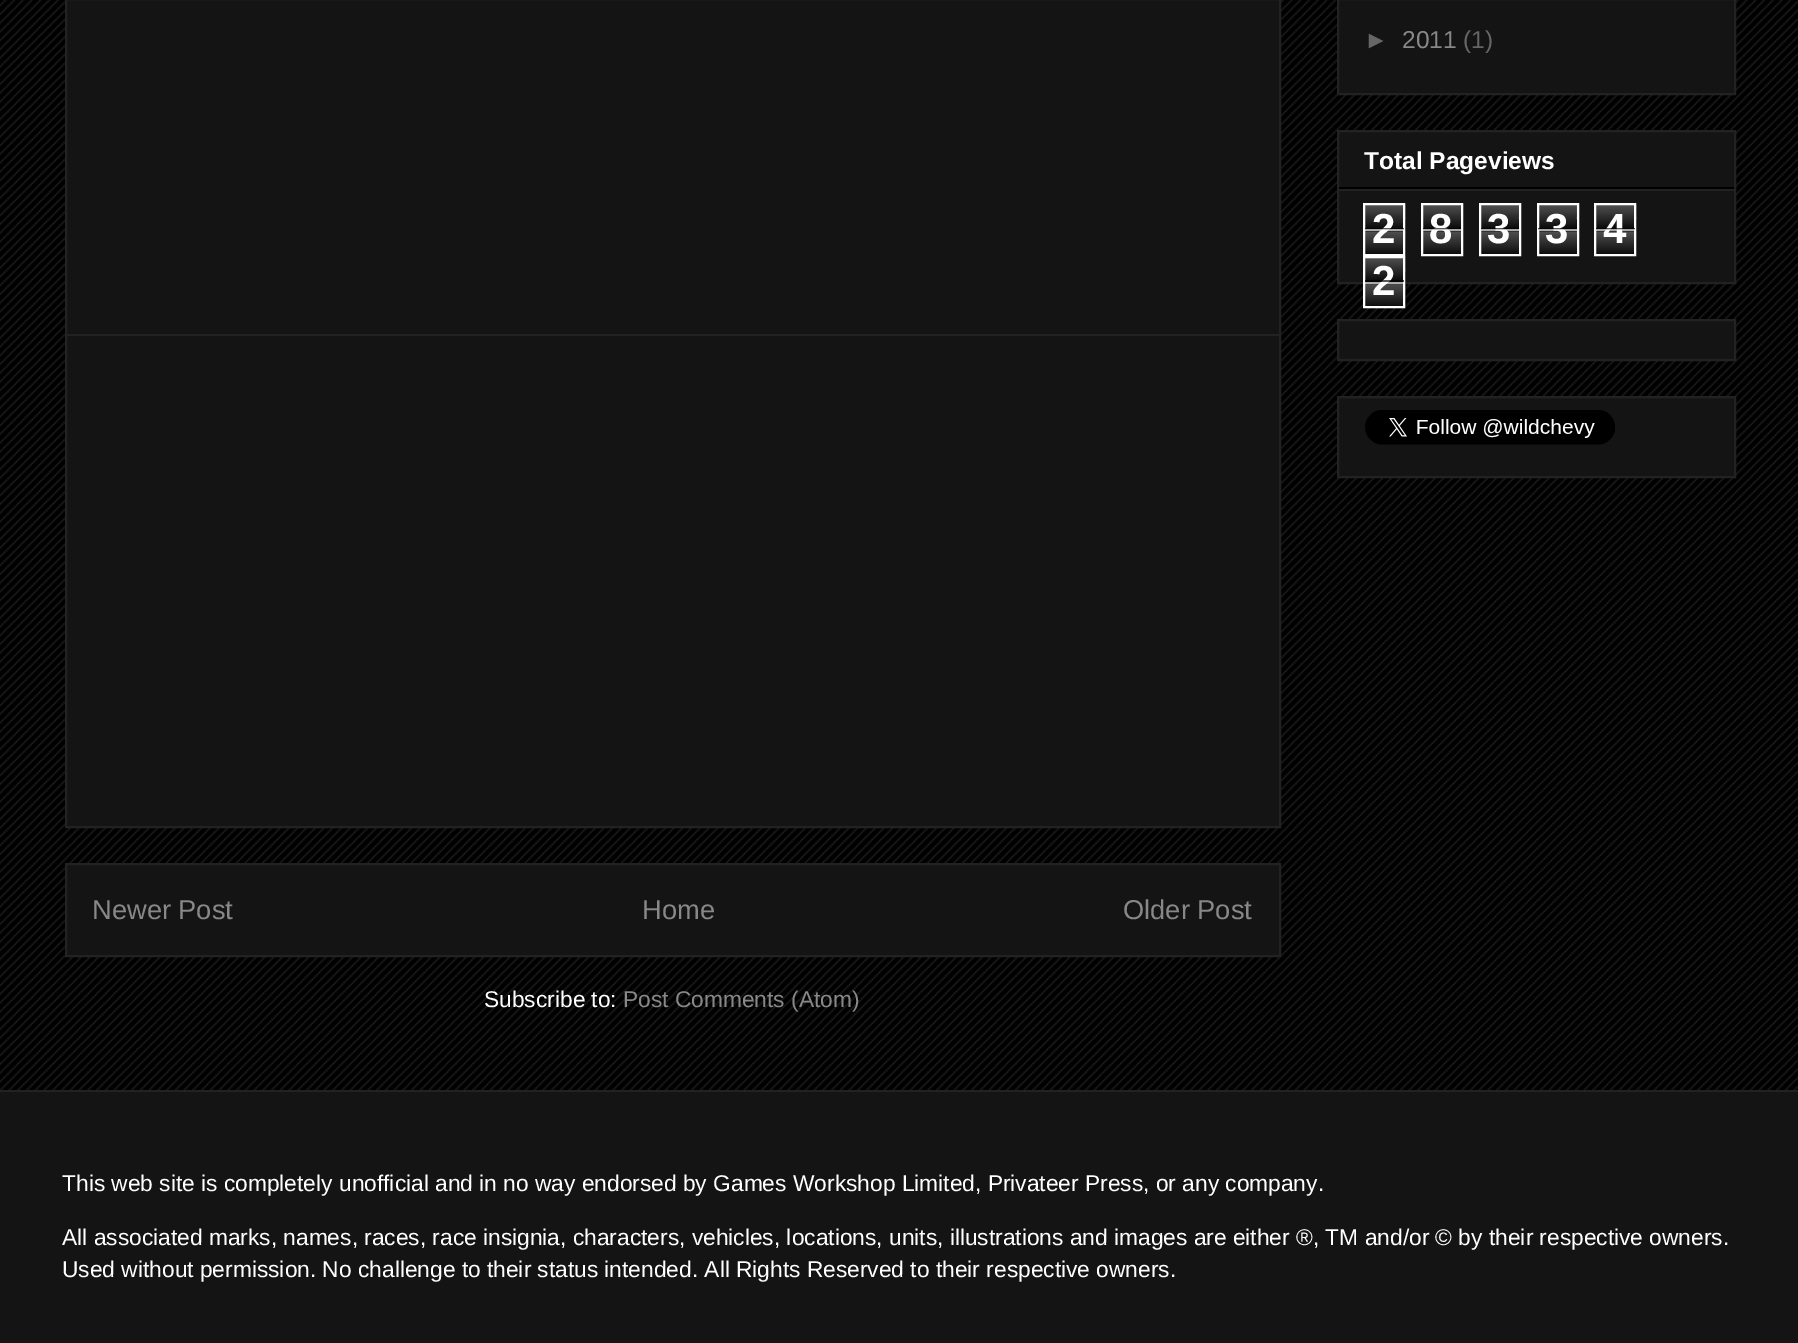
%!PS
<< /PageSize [1798 1343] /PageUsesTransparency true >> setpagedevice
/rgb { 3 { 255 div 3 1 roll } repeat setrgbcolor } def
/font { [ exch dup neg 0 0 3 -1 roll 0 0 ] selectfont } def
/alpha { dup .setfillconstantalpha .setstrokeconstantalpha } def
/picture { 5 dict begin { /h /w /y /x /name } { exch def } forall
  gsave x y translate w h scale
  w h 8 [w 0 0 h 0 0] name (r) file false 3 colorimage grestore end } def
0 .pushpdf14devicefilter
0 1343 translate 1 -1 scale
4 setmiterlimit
0 0 0 rgb
0 0 1798 1343 rectfill
(img/1.rgb) 0 0 1798 1090 picture
20 20 20 rgb
1338 -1 moveto 1735 -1 lineto 1735 94 lineto 1338 94 lineto closepath gsave fill grestore
34 34 34 rgb
2 setlinewidth
stroke
20 20 20 rgb
1338 131 moveto 1735 131 lineto 1735 283 lineto 1338 283 lineto closepath gsave fill grestore
34 34 34 rgb
stroke
0 0 0 rgb
1339 187 395 2 rectfill
34 34 34 rgb
1339 189 395 2 rectfill
(img/2.rgb) 1365 205 41 51 picture
255 255 255 rgb
1364 204 40 51 rectstroke
(img/3.rgb) 1423 205 38 49 picture
1422 204 40 51 rectstroke
(img/4.rgb) 1481 205 38 49 picture
1480 204 40 51 rectstroke
(img/5.rgb) 1539 205 38 49 picture
1538 204 40 51 rectstroke
(img/2.rgb) 1596 205 41 51 picture
1595 204 40 51 rectstroke
(img/6.rgb) 1365 257 41 51 picture
1364 257 40 50 rectstroke
20 20 20 rgb
1338 320 moveto 1735 320 lineto 1735 360 lineto 1338 360 lineto closepath gsave fill grestore
34 34 34 rgb
stroke
20 20 20 rgb
1338 397 moveto 1735 397 lineto 1735 477 lineto 1338 477 lineto closepath gsave fill grestore
34 34 34 rgb
stroke
(img/7.rgb) 1365 410 250 35 picture
20 20 20 rgb
66 -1 moveto 1280 -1 lineto 1280 827 lineto 66 827 lineto closepath gsave fill grestore
34 34 34 rgb
stroke
67 334 1212 2 rectfill
20 20 20 rgb
66 864 moveto 1280 864 lineto 1280 956 lineto 66 956 lineto closepath gsave fill grestore
34 34 34 rgb
stroke
20 20 20 rgb
0 1092 1798 251 rectfill
34 34 34 rgb
0 1090 1798 2 rectfill
/LiberationSans-Regular 24.5 font
102 102 102 rgb
1364 48 moveto (►) show
136 136 136 rgb
1402 48 moveto (2011) show
102 102 102 rgb
1463 48 moveto (\(1\)) show
/LiberationSans-Bold 24.5 font
255 255 255 rgb
1364 169 moveto (Total Pageviews) show
/LiberationSans-Bold 42 font
1372 243 moveto (2) show
0.65 alpha
0 0 0 rgb
1365 228 39 2 rectfill
255 255 255 rgb
1365 229 39 2 rectfill
1 alpha
1429 243 moveto (8) show
0.65 alpha
0 0 0 rgb
1423 228 38 2 rectfill
255 255 255 rgb
1423 229 38 2 rectfill
1 alpha
1487 243 moveto (3) show
0.65 alpha
0 0 0 rgb
1481 228 38 2 rectfill
255 255 255 rgb
1481 229 38 2 rectfill
1 alpha
1545 243 moveto (3) show
0.65 alpha
0 0 0 rgb
1538 228 39 2 rectfill
255 255 255 rgb
1538 229 39 2 rectfill
1 alpha
1603 243 moveto (4) show
0.65 alpha
0 0 0 rgb
1596 228 39 2 rectfill
255 255 255 rgb
1596 229 39 2 rectfill
1 alpha
1372 295 moveto (2) show
0.65 alpha
0 0 0 rgb
1365 280 39 2 rectfill
255 255 255 rgb
1365 282 39 2 rectfill
/LiberationSans-Regular 27.25 font
1 alpha
136 136 136 rgb
[
  [(Newer Post) 92 919]
  [(Home) 642 919]
  [(Older Post) 1123 919]
] { aload pop moveto show } forall
/LiberationSans-Regular 22.75 font
255 255 255 rgb
484 1007 moveto (Subscribe to:) show
136 136 136 rgb
623 1007 moveto (Post Comments \(Atom\)) show
255 255 255 rgb
[
  [(This web site is completely unofficial and in no way endorsed by Games Workshop Limited, Privateer Press, or any company.) 62 1191]
  [(All associated marks, names, races, race insignia, characters, vehicles, locations, units, illustrations and images are either ®, TM and/or © by their respective owners.) 62 1245]
  [(Used without permission. No challenge to their status intended. All Rights Reserved to their respective owners.) 62 1277]
] { aload pop moveto show } forall
.poppdf14devicefilter showpage
